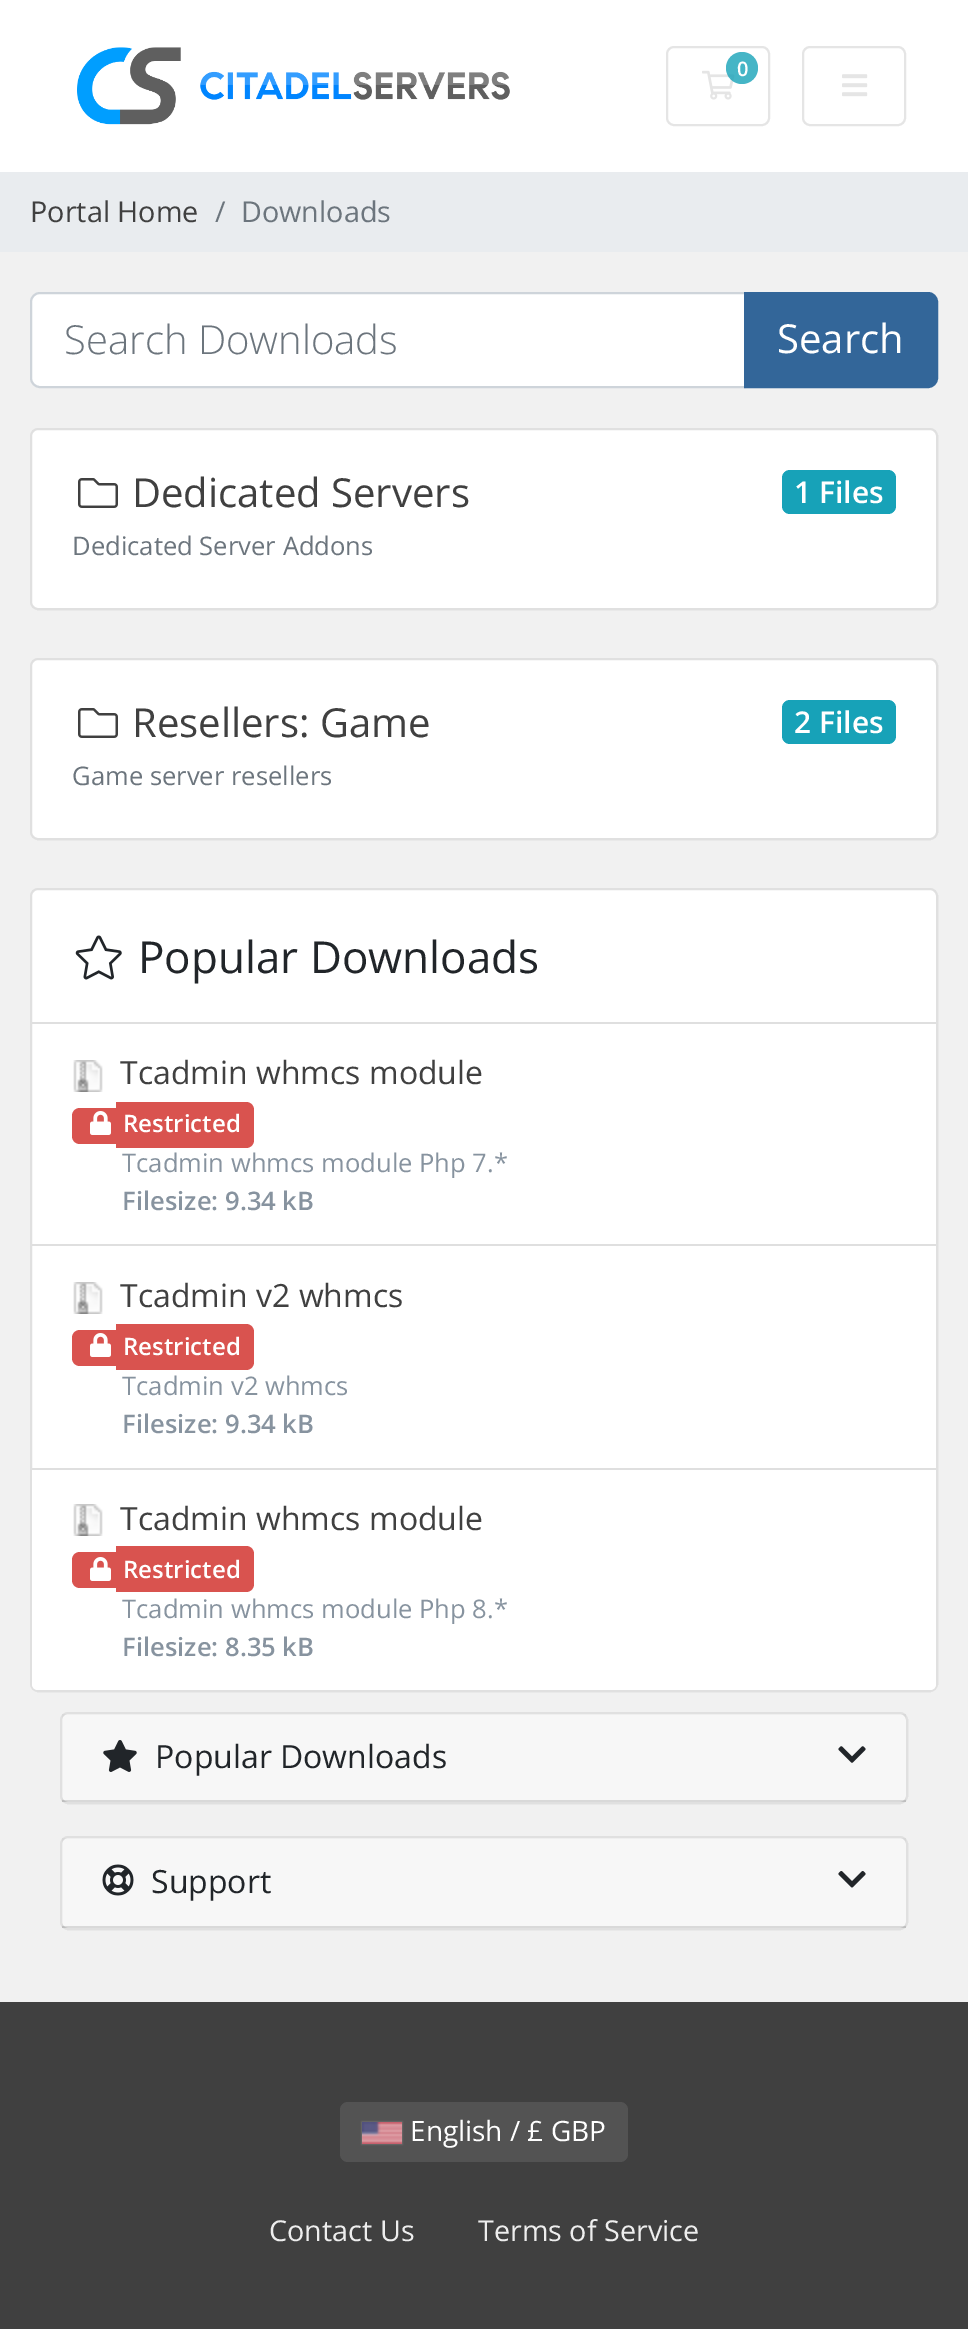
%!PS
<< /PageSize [968 2329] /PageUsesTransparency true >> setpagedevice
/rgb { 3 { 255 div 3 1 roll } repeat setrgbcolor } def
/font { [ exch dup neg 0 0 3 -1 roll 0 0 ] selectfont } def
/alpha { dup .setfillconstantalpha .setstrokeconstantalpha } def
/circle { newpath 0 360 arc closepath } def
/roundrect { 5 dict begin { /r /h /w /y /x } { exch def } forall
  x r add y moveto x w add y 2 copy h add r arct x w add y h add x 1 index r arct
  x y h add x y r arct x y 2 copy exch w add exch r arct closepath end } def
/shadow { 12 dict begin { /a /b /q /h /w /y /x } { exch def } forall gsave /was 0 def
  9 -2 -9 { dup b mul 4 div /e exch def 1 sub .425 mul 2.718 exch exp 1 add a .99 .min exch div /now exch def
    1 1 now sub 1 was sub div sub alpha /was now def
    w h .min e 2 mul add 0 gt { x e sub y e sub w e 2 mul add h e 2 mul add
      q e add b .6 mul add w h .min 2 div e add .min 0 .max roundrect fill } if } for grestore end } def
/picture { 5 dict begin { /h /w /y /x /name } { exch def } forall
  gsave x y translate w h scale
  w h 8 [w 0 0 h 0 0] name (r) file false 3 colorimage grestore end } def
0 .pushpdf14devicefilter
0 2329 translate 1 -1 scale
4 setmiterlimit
241 241 241 rgb
0 0 968 2329 rectfill
255 255 255 rgb
0 0 968 172 rectfill
(img/1.rgb) 77 47 433 78 picture
229 229 229 rgb
2 setlinewidth
667 47 102 78 7 roundrect stroke
(img/2.rgb) 702 70 33 30 picture
0.8 alpha
23 162 184 rgb
742 68 16 circle fill
1 alpha
229 229 229 rgb
803 47 102 78 7 roundrect stroke
(img/3.rgb) 842 74 26 23 picture
233 236 239 rgb
0 172 968 80 rectfill
255 255 255 rgb
40 293 moveto 745 293 lineto 745 387 lineto 40 387 lineto 35 387 31 383 31 378 curveto 31 302 lineto 31 297 35 293 40 293 curveto closepath gsave fill grestore
206 212 218 rgb
stroke
51 102 153 rgb
745 293 moveto 928 293 lineto 933 293 937 297 937 302 curveto 937 378 lineto 937 383 933 387 928 387 curveto 745 387 lineto closepath gsave fill grestore
stroke
255 255 255 rgb
30 428 908 182 8 roundrect fill
0.12 alpha
0 0 0 rgb
31 429 906 180 7 roundrect stroke
1 alpha
(img/4.rgb) 78 478 40 30 picture
23 162 184 rgb
782 470 114 44 8 roundrect fill
255 255 255 rgb
30 658 908 182 8 roundrect fill
0.12 alpha
0 0 0 rgb
31 659 906 180 7 roundrect stroke
1 alpha
(img/4.rgb) 78 708 40 30 picture
23 162 184 rgb
782 700 114 44 8 roundrect fill
255 255 255 rgb
30 888 908 804 8 roundrect fill
0.12 alpha
0 0 0 rgb
31 889 906 802 7 roundrect stroke
1 alpha
(img/5.rgb) 75 935 47 45 picture
223 223 223 rgb
32 1022 904 2 rectfill
32 1244 904 2 rectfill
(img/6.rgb) 73 1060 30 32 picture
217 83 79 rgb
80 1108 moveto 116 1108 lineto 116 1144 lineto 80 1144 lineto 75.5 1144 72 1140.5 72 1136 curveto 72 1116 lineto 72 1111.5 75.5 1108 80 1108 curveto closepath fill
116 1102 moveto 246 1102 lineto 250.5 1102 254 1105.5 254 1110 curveto 254 1140 lineto 254 1144.5 250.5 1148 246 1148 curveto 116 1148 lineto closepath fill
(img/7.rgb) 90 1111 21 24 picture
223 223 223 rgb
32 1468 904 2 rectfill
(img/6.rgb) 73 1282 30 32 picture
217 83 79 rgb
80 1330 moveto 116 1330 lineto 116 1366 lineto 80 1366 lineto 75.5 1366 72 1362.5 72 1358 curveto 72 1338 lineto 72 1333.5 75.5 1330 80 1330 curveto closepath fill
116 1324 moveto 246 1324 lineto 250.5 1324 254 1327.5 254 1332 curveto 254 1362 lineto 254 1366.5 250.5 1370 246 1370 curveto 116 1370 lineto closepath fill
(img/7.rgb) 90 1333 21 24 picture
255 255 255 rgb
32 1470 moveto 936 1470 lineto 936 1684 lineto 936 1687.5 933.5 1690 930 1690 curveto 38 1690 lineto 34.5 1690 32 1687.5 32 1684 curveto closepath fill
(img/6.rgb) 73 1504 30 32 picture
217 83 79 rgb
80 1552 moveto 116 1552 lineto 116 1588 lineto 80 1588 lineto 75.5 1588 72 1584.5 72 1580 curveto 72 1560 lineto 72 1555.5 75.5 1552 80 1552 curveto closepath fill
116 1546 moveto 246 1546 lineto 250.5 1546 254 1549.5 254 1554 curveto 254 1584 lineto 254 1588.5 250.5 1592 246 1592 curveto 116 1592 lineto closepath fill
(img/7.rgb) 90 1557 21 24 picture
255 255 255 rgb
60 1712 848 92 8 roundrect fill
0.12 alpha
0 0 0 rgb
61 1713 846 90 7 roundrect stroke
0.03 alpha
62 1714 844 88 rectfill
0.12 alpha
62 1800 844 2 rectfill
1 alpha
(img/8.rgb) 103 1740 34 32 picture
(img/9.rgb) 838 1746 28 17 picture
255 255 255 rgb
60 1836 848 94 8 roundrect fill
0.12 alpha
0 0 0 rgb
61 1837 846 92 7 roundrect stroke
0.03 alpha
62 1838 844 90 rectfill
0.12 alpha
62 1926 844 2 rectfill
1 alpha
(img/10.rgb) 102 1864 32 32 picture
(img/11.rgb) 838 1871 28 17 picture
64 64 64 rgb
0 2002 968 327 rectfill
83 83 83 rgb
340 2102 288 60 8 roundrect fill
136 136 136 rgb
362 2122 40 22 0 1 1 shadow
(img/12.rgb) 362 2122 40 22 picture
/OpenSans-SemiBold 20 font
255 255 255 rgb
737 76 moveto (0) show
/OpenSans-Regular 28.75 font
64 64 64 rgb
30 222 moveto (Portal Home) show
108 117 125 rgb
215 222 moveto (/) show
241 222 moveto (Downloads) show
/OpenSans-Light 40 font
64 354 moveto (Search Downloads) show
/OpenSans-Regular 40 font
255 255 255 rgb
777 353 moveto (Search) show
64 64 64 rgb
132 507 moveto (Dedicated Servers) show
/OpenSans-SemiBold 30 font
255 255 255 rgb
794 503 moveto (1 Files) show
/OpenSans-Regular 25.6 font
108 117 125 rgb
72 555 moveto (Dedicated Server Addons) show
/OpenSans-Regular 40 font
64 64 64 rgb
132 737 moveto (Resellers: Game) show
/OpenSans-SemiBold 30 font
255 255 255 rgb
794 733 moveto (2 Files) show
/OpenSans-Regular 25.6 font
108 117 125 rgb
72 785 moveto (Game server resellers) show
/OpenSans-Regular 44 font
33 37 41 rgb
138 973 moveto (Popular Downloads) show
/OpenSans-Regular 32 font
64 64 64 rgb
120 1084 moveto (Tcadmin whmcs module) show
/OpenSans-SemiBold 24 font
255 255 255 rgb
123 1132 moveto (Restricted) show
/OpenSans-Regular 25.6 font
135 147 159 rgb
122 1172 moveto (Tcadmin whmcs module Php 7.*) show
/OpenSans-SemiBold 25.6 font
122 1210 moveto (Filesize: 9.34 kB) show
/OpenSans-Regular 32 font
64 64 64 rgb
120 1307 moveto (Tcadmin v2 whmcs) show
/OpenSans-SemiBold 24 font
255 255 255 rgb
123 1355 moveto (Restricted) show
/OpenSans-Regular 25.6 font
135 147 159 rgb
122 1395 moveto (Tcadmin v2 whmcs) show
/OpenSans-SemiBold 25.6 font
122 1433 moveto (Filesize: 9.34 kB) show
/OpenSans-Regular 32 font
64 64 64 rgb
120 1530 moveto (Tcadmin whmcs module) show
/OpenSans-SemiBold 24 font
255 255 255 rgb
123 1578 moveto (Restricted) show
/OpenSans-Regular 25.6 font
135 147 159 rgb
122 1618 moveto (Tcadmin whmcs module Php 8.*) show
/OpenSans-SemiBold 25.6 font
122 1656 moveto (Filesize: 8.35 kB) show
/OpenSans-Regular 32 font
33 37 41 rgb
155 1768 moveto (Popular Downloads) show
151 1893 moveto (Support) show
/OpenSans-Regular 28 font
255 255 255 rgb
410 2141 moveto (English / £ GBP) show
/OpenSans-Regular 28.75 font
238 238 238 rgb
269 2241 moveto (Contact Us) show
478 2241 moveto (Terms of Service) show
.poppdf14devicefilter showpage
